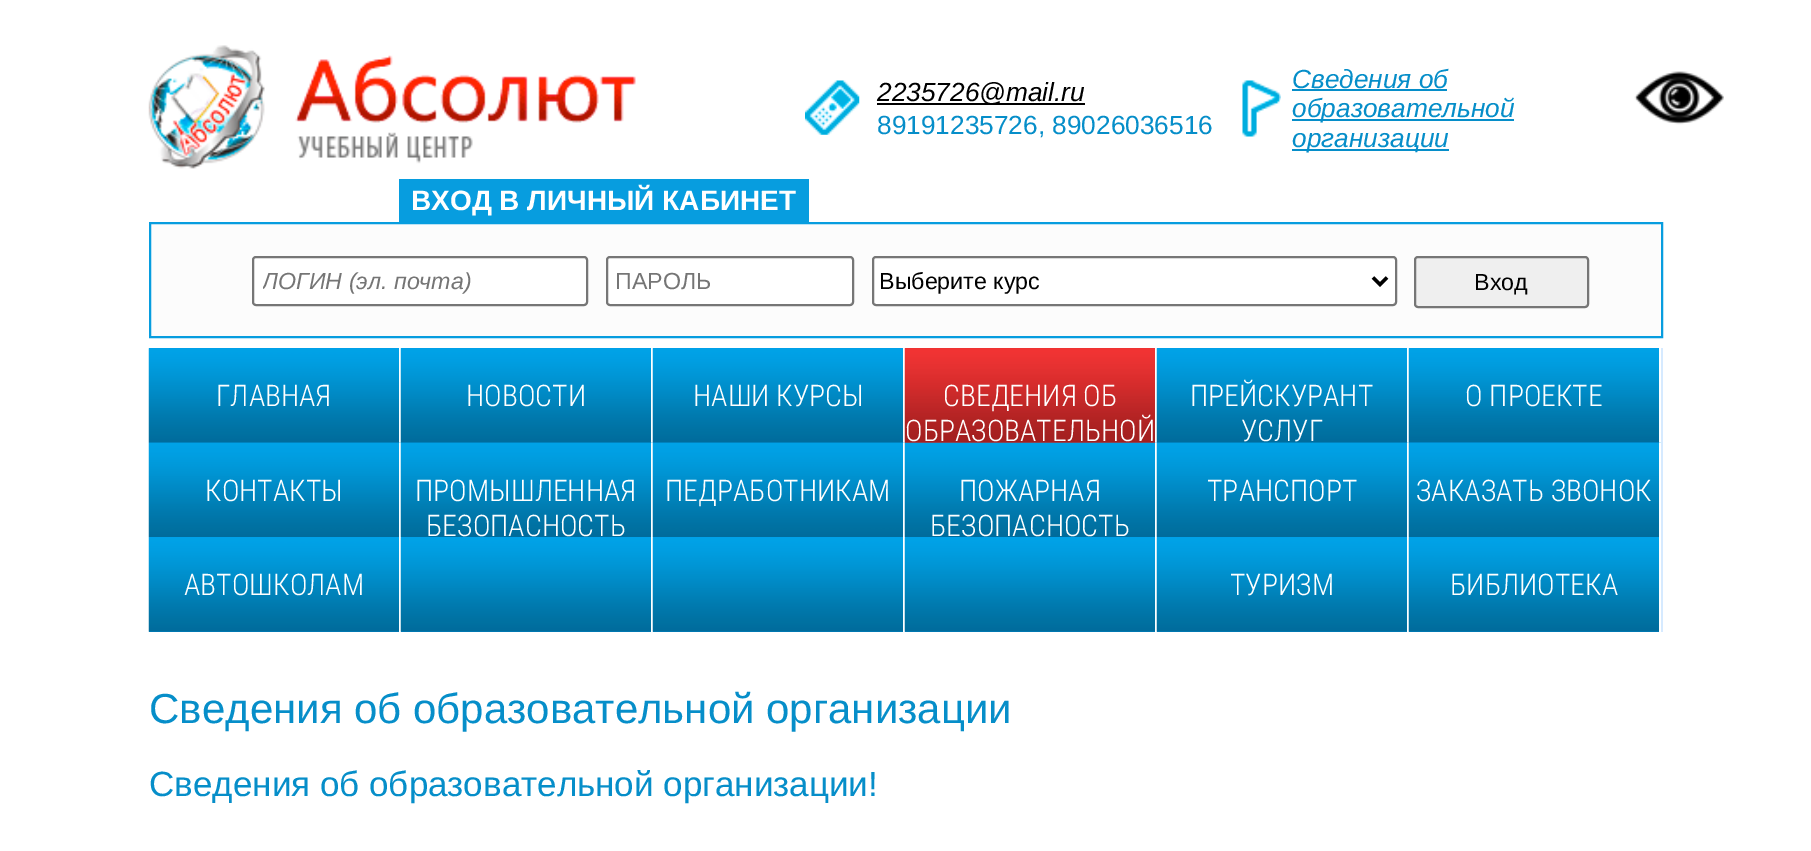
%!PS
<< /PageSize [1811 851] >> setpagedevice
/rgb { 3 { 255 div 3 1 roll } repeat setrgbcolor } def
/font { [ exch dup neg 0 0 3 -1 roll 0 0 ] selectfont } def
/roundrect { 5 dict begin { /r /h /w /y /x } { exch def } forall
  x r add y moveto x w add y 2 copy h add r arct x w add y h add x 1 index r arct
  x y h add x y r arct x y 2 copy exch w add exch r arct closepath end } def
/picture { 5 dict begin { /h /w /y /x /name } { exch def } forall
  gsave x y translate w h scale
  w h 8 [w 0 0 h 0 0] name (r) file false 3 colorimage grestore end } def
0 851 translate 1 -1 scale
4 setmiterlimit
255 255 255 rgb
0 0 1811 851 rectfill
(img/1.rgb) 148 45 488 124 picture
(img/2.rgb) 805 80 55 55 picture
0 0 0 rgb
877 103 208 2 rectfill
(img/3.rgb) 1242 80 39 57 picture
[
  [1292 89 155 2 6 142 201]
  [1292 119 222 2 6 142 201]
  [1292 149 157 2 6 142 201]
] { aload pop rgb rectfill } forall
252 252 252 rgb
150 223 moveto 1662 223 lineto 1662 337 lineto 150 337 lineto closepath gsave fill grestore
7 157 223 rgb
2 setlinewidth
stroke
399 179 410 43 rectfill
255 255 255 rgb
253 257 334 48 3 roundrect gsave fill grestore
118 118 118 rgb
stroke
255 255 255 rgb
607 257 246 48 3 roundrect gsave fill grestore
118 118 118 rgb
stroke
255 255 255 rgb
873 257 523 48 3 roundrect gsave fill grestore
118 118 118 rgb
stroke
0 0 0 rgb
3.5 setlinewidth
1373 277.5 moveto 1380 284.5 lineto 1387 277.5 lineto stroke
239 239 239 rgb
1415 257 173 50 3 roundrect gsave fill grestore
118 118 118 rgb
2 setlinewidth
stroke
214 234 255 rgb
149 348 1514 284 rectfill
(img/4.rgb) 148 348 251 95 picture
255 255 255 rgb
399 348 2 95 rectfill
(img/5.rgb) 400 348 251 95 picture
651 348 2 95 rectfill
(img/6.rgb) 652 348 251 95 picture
903 348 2 95 rectfill
(img/7.rgb) 904 348 251 95 picture
1155 348 2 95 rectfill
(img/8.rgb) 1156 348 251 95 picture
1407 348 2 95 rectfill
(img/9.rgb) 1408 348 251 95 picture
1659 348 2 95 rectfill
(img/10.rgb) 148 442 253 96 picture
399 443 2 94 rectfill
(img/11.rgb) 400 442 253 96 picture
651 443 2 94 rectfill
(img/12.rgb) 652 442 253 96 picture
903 443 2 94 rectfill
(img/13.rgb) 904 442 253 96 picture
1155 443 2 94 rectfill
(img/14.rgb) 1156 442 253 96 picture
1407 443 2 94 rectfill
(img/15.rgb) 1408 442 253 96 picture
1659 443 2 189 rectfill
(img/16.rgb) 148 537 251 95 picture
399 537 2 95 rectfill
(img/17.rgb) 400 537 251 95 picture
651 537 2 95 rectfill
(img/18.rgb) 652 537 251 95 picture
903 537 2 95 rectfill
(img/19.rgb) 904 537 251 95 picture
1155 537 2 95 rectfill
(img/20.rgb) 1156 537 251 95 picture
1407 537 2 95 rectfill
(img/21.rgb) 1408 537 251 95 picture
(img/22.rgb) 1634 71 90 54 picture
/LiberationSans-Italic 26.25 font
0 0 0 rgb
877 101 moveto (2235726@mail.ru) show
/LiberationSans-Regular 26.25 font
6 142 201 rgb
877 134 moveto (89191235726, 89026036516) show
/LiberationSans-Italic 26.25 font
[
  [(Сведения об) 1292 88]
  [(образовательной) 1292 117]
  [(организации) 1292 147]
] { aload pop moveto show } forall
/LiberationSans-Bold 28 font
255 255 255 rgb
411 210 moveto (ВХОД В ЛИЧНЫЙ КАБИНЕТ) show
gsave
263 268 315 26 rectclip
/LiberationSans-Italic 23.25 font
117 117 117 rgb
262 289 moveto (ЛОГИН \(эл. почта\)) show
grestore
/LiberationSans-Regular 23.25 font
117 117 117 rgb
615 289 moveto (ПАРОЛЬ) show
0 0 0 rgb
879 289 moveto (Выберите курс) show
1474 290 moveto (Вход) show
/RobotoCondensed-Light 29.75 font
255 255 255 rgb
[
  [(ГЛАВНАЯ) 216 406]
  [(НОВОСТИ) 466 406]
  [(НАШИ КУРСЫ) 693 406]
  [(СВЕДЕНИЯ ОБ) 943 406]
  [(ОБРАЗОВАТЕЛЬНОЙ) 905 441]
  [(ПРЕЙСКУРАНТ) 1190 406]
  [(УСЛУГ) 1241 441]
  [(О ПРОЕКТЕ) 1465 406]
  [(КОНТАКТЫ) 205 501]
  [(ПРОМЫШЛЕННАЯ) 415 501]
  [(БЕЗОПАСНОСТЬ) 426 536]
  [(ПЕДРАБОТНИКАМ) 665 501]
  [(ПОЖАРНАЯ) 959 501]
  [(БЕЗОПАСНОСТЬ) 930 536]
  [(ТРАНСПОРТ) 1207 501]
  [(ЗАКАЗАТЬ ЗВОНОК) 1416 501]
  [(АВТОШКОЛАМ) 184 595]
  [(ТУРИЗМ) 1230 595]
  [(БИБЛИОТЕКА) 1450 595]
] { aload pop moveto show } forall
/LiberationSans-Regular 42 font
6 142 201 rgb
149 723 moveto (Сведения об образовательной организации) show
/LiberationSans-Regular 35 font
149 796 moveto (Сведения об образовательной организации!) show
showpage
